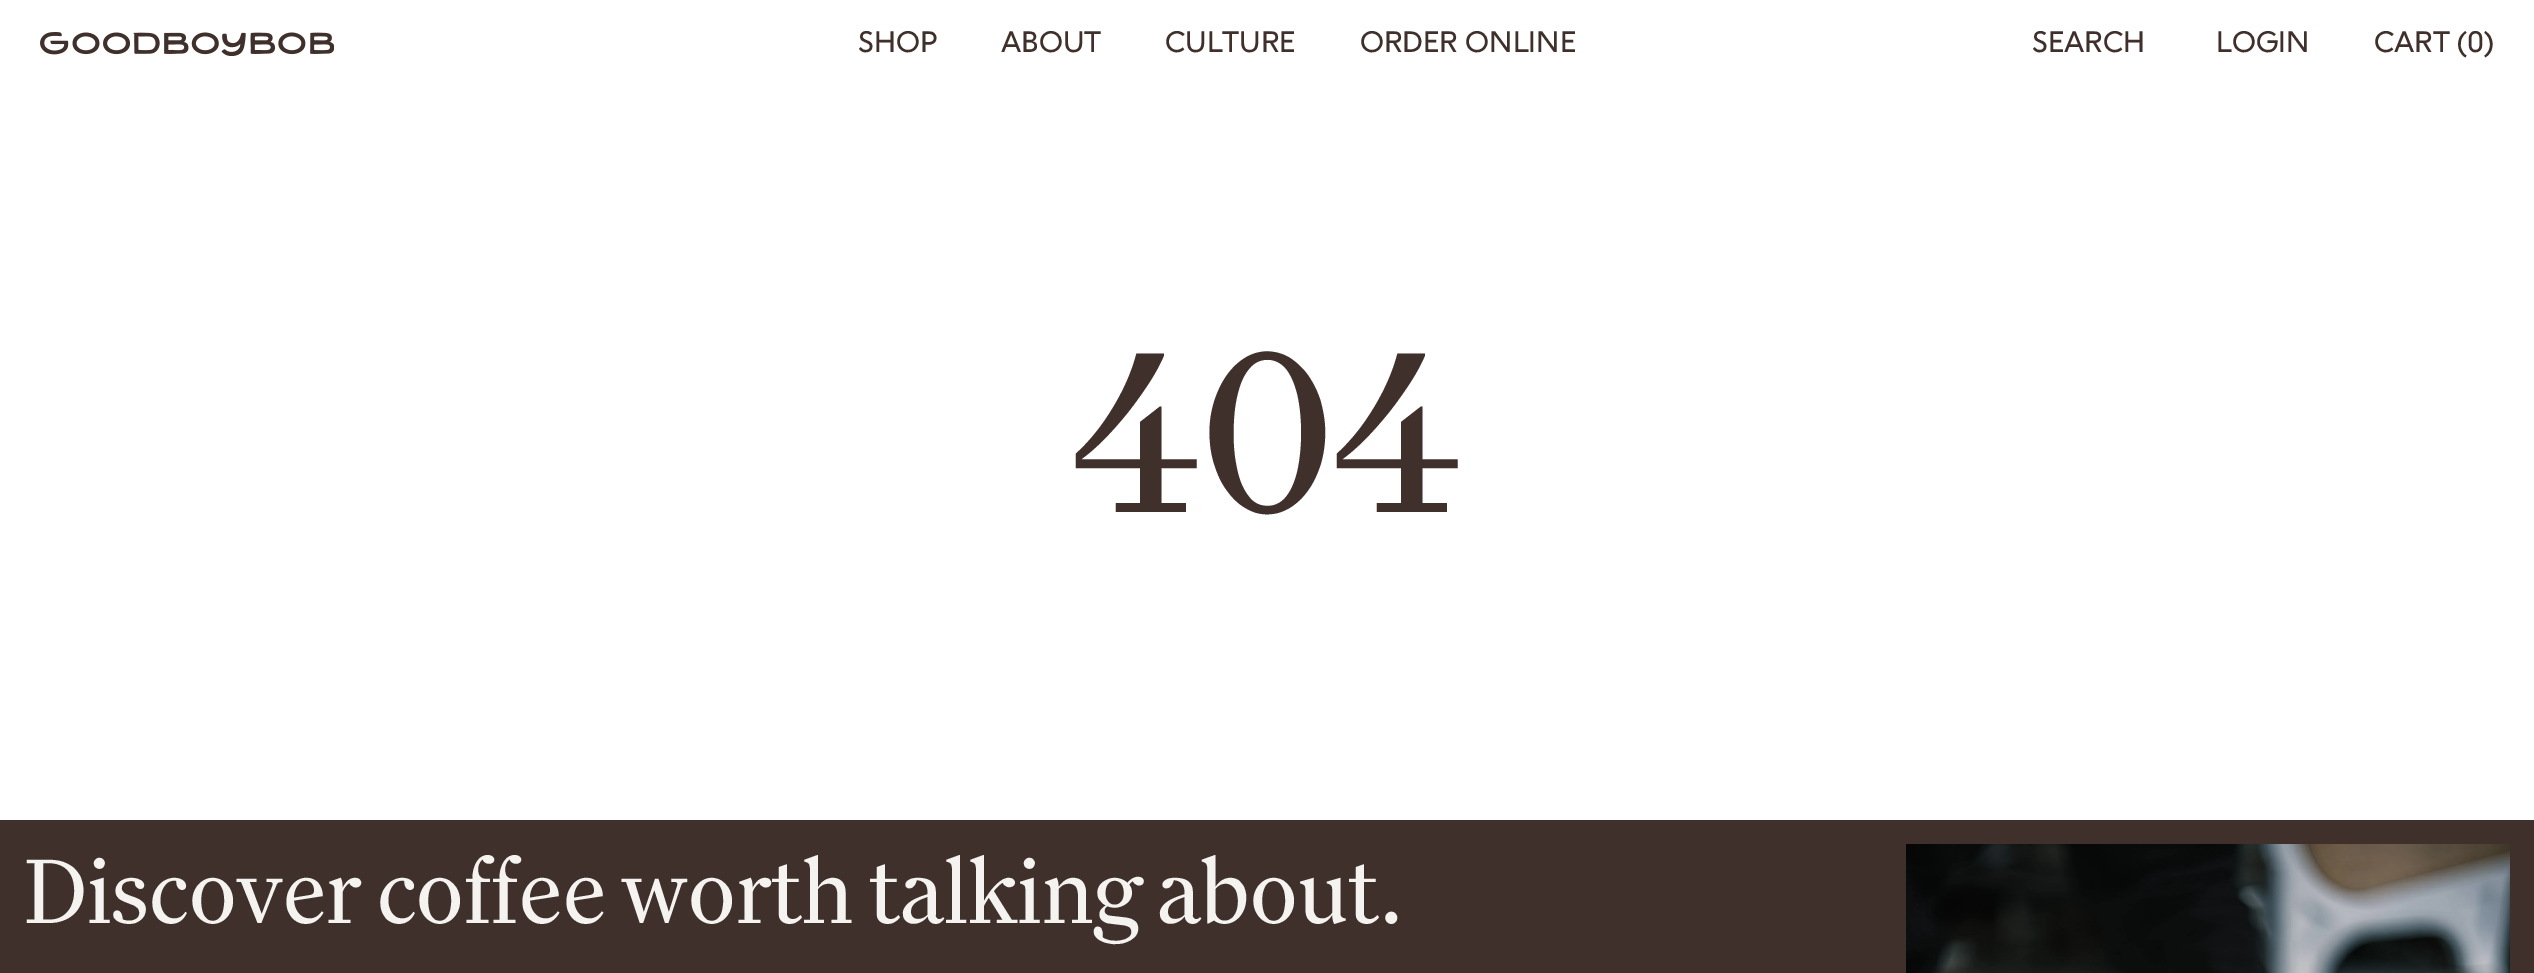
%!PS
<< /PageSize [2534 973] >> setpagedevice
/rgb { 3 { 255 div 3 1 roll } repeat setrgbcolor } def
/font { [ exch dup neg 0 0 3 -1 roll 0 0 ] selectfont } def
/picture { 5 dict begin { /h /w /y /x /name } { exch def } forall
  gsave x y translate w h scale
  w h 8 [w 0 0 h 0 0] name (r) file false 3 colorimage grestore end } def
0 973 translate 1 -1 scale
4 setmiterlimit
255 255 255 rgb
0 0 2534 973 rectfill
(img/1.rgb) 40 32 294 24 picture
64 48 44 rgb
0 820 2534 153 rectfill
(img/2.rgb) 1906 844 604 129 picture
/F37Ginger-Regular 28 font
[
  [(SHOP) 858 52]
  [(ABOUT) 1001 52]
  [(CULTURE) 1165 52]
  [(ORDER ONLINE) 1360 52]
  [(SEARCH) 2032 52]
  [(LOGIN) 2216 52]
  [(CART \(0\)) 2374 52]
] { aload pop moveto show } forall
/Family-Regular 240 font
1071 512 moveto (404) show
/Family-Regular 96 font
244 243 240 rgb
24 923 moveto (Discover coffee worth talking about.) show
showpage
